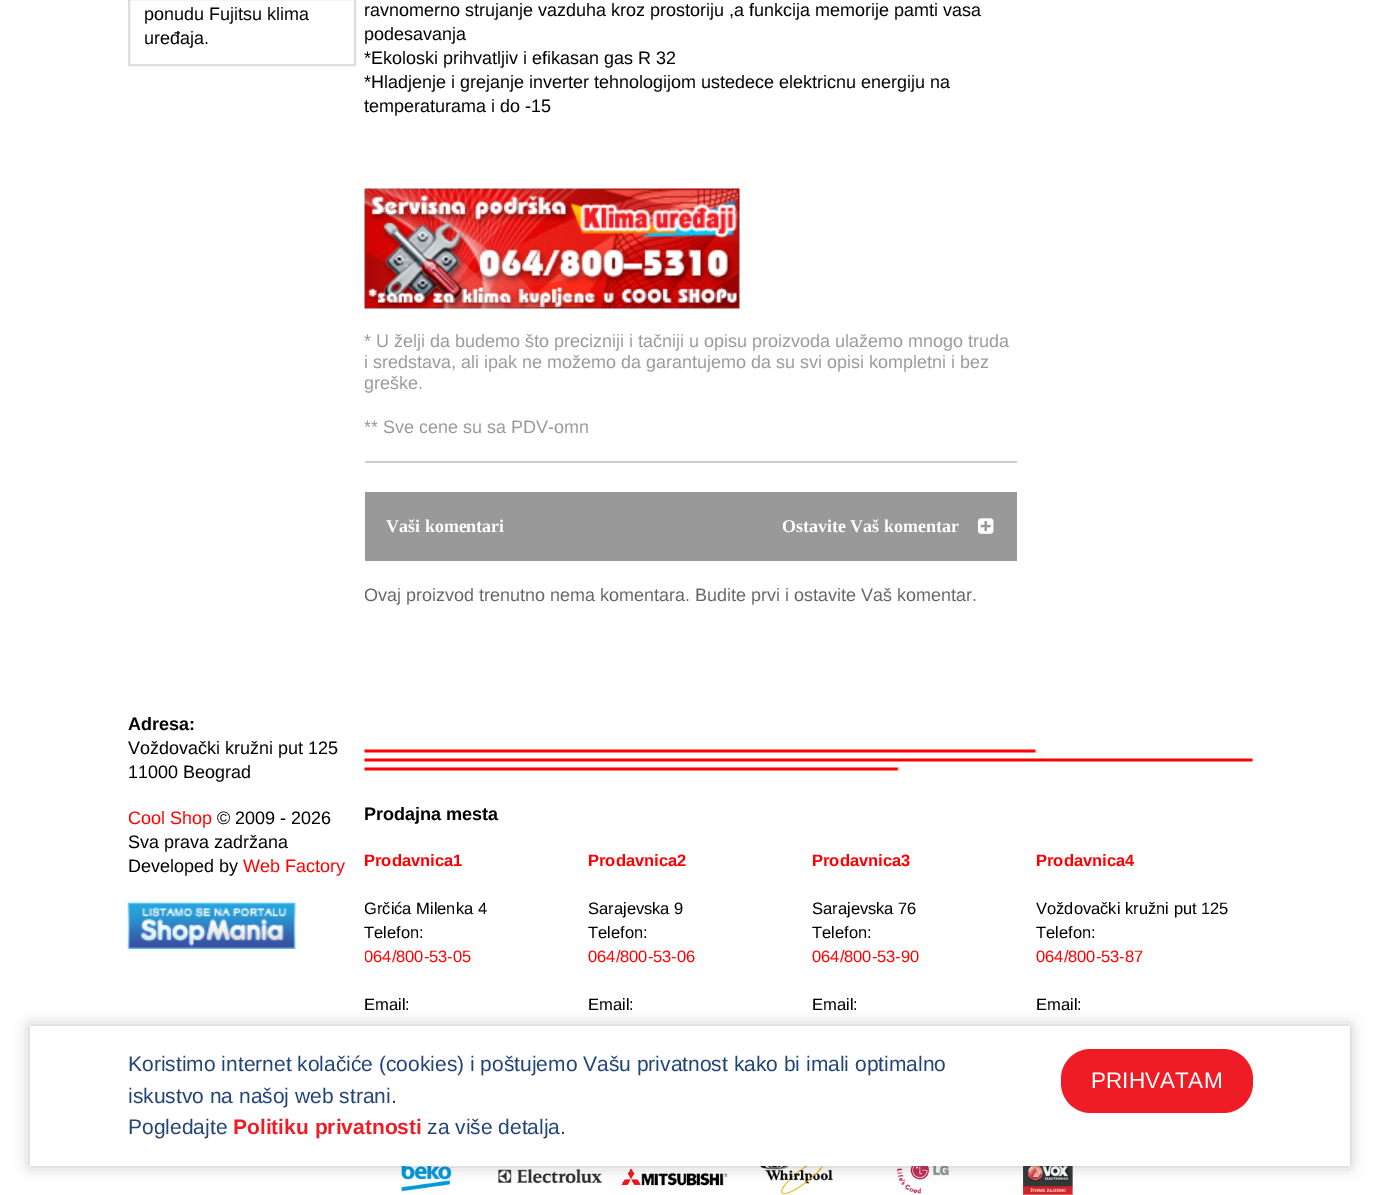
%!PS
<< /PageSize [1380 1195] /PageUsesTransparency true >> setpagedevice
/rgb { 3 { 255 div 3 1 roll } repeat setrgbcolor } def
/font { [ exch dup neg 0 0 3 -1 roll 0 0 ] selectfont } def
/alpha { dup .setfillconstantalpha .setstrokeconstantalpha } def
/roundrect { 5 dict begin { /r /h /w /y /x } { exch def } forall
  x r add y moveto x w add y 2 copy h add r arct x w add y h add x 1 index r arct
  x y h add x y r arct x y 2 copy exch w add exch r arct closepath end } def
/shadow { 12 dict begin { /a /b /q /h /w /y /x } { exch def } forall gsave /was 0 def
  9 -2 -9 { dup b mul 4 div /e exch def 1 sub .425 mul 2.718 exch exp 1 add a .99 .min exch div /now exch def
    1 1 now sub 1 was sub div sub alpha /was now def
    w h .min e 2 mul add 0 gt { x e sub y e sub w e 2 mul add h e 2 mul add
      q e add b .6 mul add w h .min 2 div e add .min 0 .max roundrect fill } if } for grestore end } def
/picture { 5 dict begin { /h /w /y /x /name } { exch def } forall
  gsave x y translate w h scale
  w h 8 [w 0 0 h 0 0] name (r) file false 3 colorimage grestore end } def
0 .pushpdf14devicefilter
0 1195 translate 1 -1 scale
4 setmiterlimit
255 255 255 rgb
0 0 1380 1195 rectfill
221 221 221 rgb
2 setlinewidth
129 -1 226 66 rectstroke
(img/1.rgb) 364 188 376 121 picture
204 204 204 rgb
365 461 652 2 rectfill
153 153 153 rgb
365 492 652 69 rectfill
(img/2.rgb) 978 518 16 16 picture
(img/3.rgb) 127 902 169 47 picture
(img/4.rgb) 364 749 889 22 picture
(img/5.rgb) 401 1166 51 26 picture
(img/6.rgb) 498 1169 105 15 picture
(img/7.rgb) 621 1168 107 20 picture
(img/8.rgb) 760 1166 73 29 picture
(img/9.rgb) 897 1166 52 28 picture
(img/10.rgb) 1023 1166 50 29 picture
50 50 50 rgb
30 1026 1320 140 0 7.5 0.3 shadow
255 255 255 rgb
30 1026 1320 140 rectfill
239 28 37 rgb
1061 1049 192 64 30 roundrect fill
/LiberationSans-Regular 18 font
0 0 0 rgb
[
  [(ponudu Fujitsu klima) 144 20]
  [(uređaja.) 144 44]
  [(ravnomerno strujanje vazduha kroz prostoriju ,a funkcija memorije pamti vasa) 364 16]
  [(podesavanja) 364 40]
  [(*Ekoloski prihvatljiv i efikasan gas R 32) 364 64]
  [(*Hladjenje i grejanje inverter tehnologijom ustedece elektricnu energiju na) 364 88]
  [(temperaturama i do -15) 364 112]
] { aload pop moveto show } forall
153 153 153 rgb
364 347 moveto (* U želji da budemo što precizniji i tačniji u opisu proizvoda ulažemo mnogo truda) show
364 368 moveto (i sredstava, ali ipak ne možemo da garantujemo da su svi opisi kompletni i bez) show
gsave
365 332 652 63 rectclip
364 389 moveto (greške.) show
grestore
364 433 moveto (** Sve cene su sa PDV-omn) show
/LiberationSerif-Bold 18 font
255 255 255 rgb
386 532 moveto (Vaši komentari) show
782 532 moveto (Ostavite Vaš komentar) show
gsave
365 584 652 24 rectclip
/LiberationSans-Regular 18 font
102 102 102 rgb
364 601 moveto (Ovaj proizvod trenutno nema komentara. Budite prvi i ostavite Vaš komentar.) show
grestore
/LiberationSans-Bold 18 font
0 0 0 rgb
128 730 moveto (Adresa:) show
/LiberationSans-Regular 18 font
128 754 moveto (Voždovački kružni put 125) show
128 778 moveto (11000 Beograd) show
255 0 0 rgb
128 824 moveto (Cool Shop) show
0 0 0 rgb
[
  [(© 2009 - 2026) 217 824]
  [(Sva prava zadržana) 128 848]
  [(Developed by) 128 872]
] { aload pop moveto show } forall
255 0 0 rgb
243 872 moveto (Web Factory) show
/LiberationSans-Bold 18 font
0 0 0 rgb
364 820 moveto (Prodajna mesta) show
gsave
365 849 216 192 rectclip
/LiberationSans-Bold 16.5 font
255 0 0 rgb
364 866 moveto (Prodavnica1) show
/LiberationSans-Regular 16.5 font
0 0 0 rgb
364 914 moveto (Grčića Milenka 4) show
grestore
/LiberationSans-Regular 16.5 font
364 938 moveto (Telefon:) show
gsave
365 849 216 192 rectclip
255 0 0 rgb
364 962 moveto (064/800-53-05) show
grestore
364 1010 moveto (Email:) show
/LiberationSans-Bold 16.5 font
255 0 0 rgb
588 866 moveto (Prodavnica2) show
/LiberationSans-Regular 16.5 font
0 0 0 rgb
588 914 moveto (Sarajevska 9) show
588 938 moveto (Telefon:) show
255 0 0 rgb
588 962 moveto (064/800-53-06) show
0 0 0 rgb
588 1010 moveto (Email:) show
/LiberationSans-Bold 16.5 font
255 0 0 rgb
812 866 moveto (Prodavnica3) show
/LiberationSans-Regular 16.5 font
0 0 0 rgb
812 914 moveto (Sarajevska 76) show
812 938 moveto (Telefon:) show
255 0 0 rgb
812 962 moveto (064/800-53-90) show
0 0 0 rgb
812 1010 moveto (Email:) show
/LiberationSans-Bold 16.5 font
255 0 0 rgb
1036 866 moveto (Prodavnica4) show
/LiberationSans-Regular 16.5 font
0 0 0 rgb
1036 914 moveto (Voždovački kružni put 125) show
1036 938 moveto (Telefon:) show
255 0 0 rgb
1036 962 moveto (064/800-53-87) show
0 0 0 rgb
1036 1010 moveto (Email:) show
/LiberationSans-Regular 21 font
35 68 121 rgb
[
  [(Koristimo internet kolačiće \(cookies\) i poštujemo Vašu privatnost kako bi imali optimalno) 128 1071]
  [(iskustvo na našoj web strani.) 128 1103]
  [(Pogledajte) 128 1134]
] { aload pop moveto show } forall
/LiberationSans-Bold 21 font
239 28 37 rgb
233 1134 moveto (Politiku privatnosti) show
/LiberationSans-Regular 21 font
35 68 121 rgb
427 1134 moveto (za više detalja.) show
/LiberationSans-Regular 22.5 font
255 255 255 rgb
1091 1088 moveto (PRIHVATAM) show
.poppdf14devicefilter showpage
